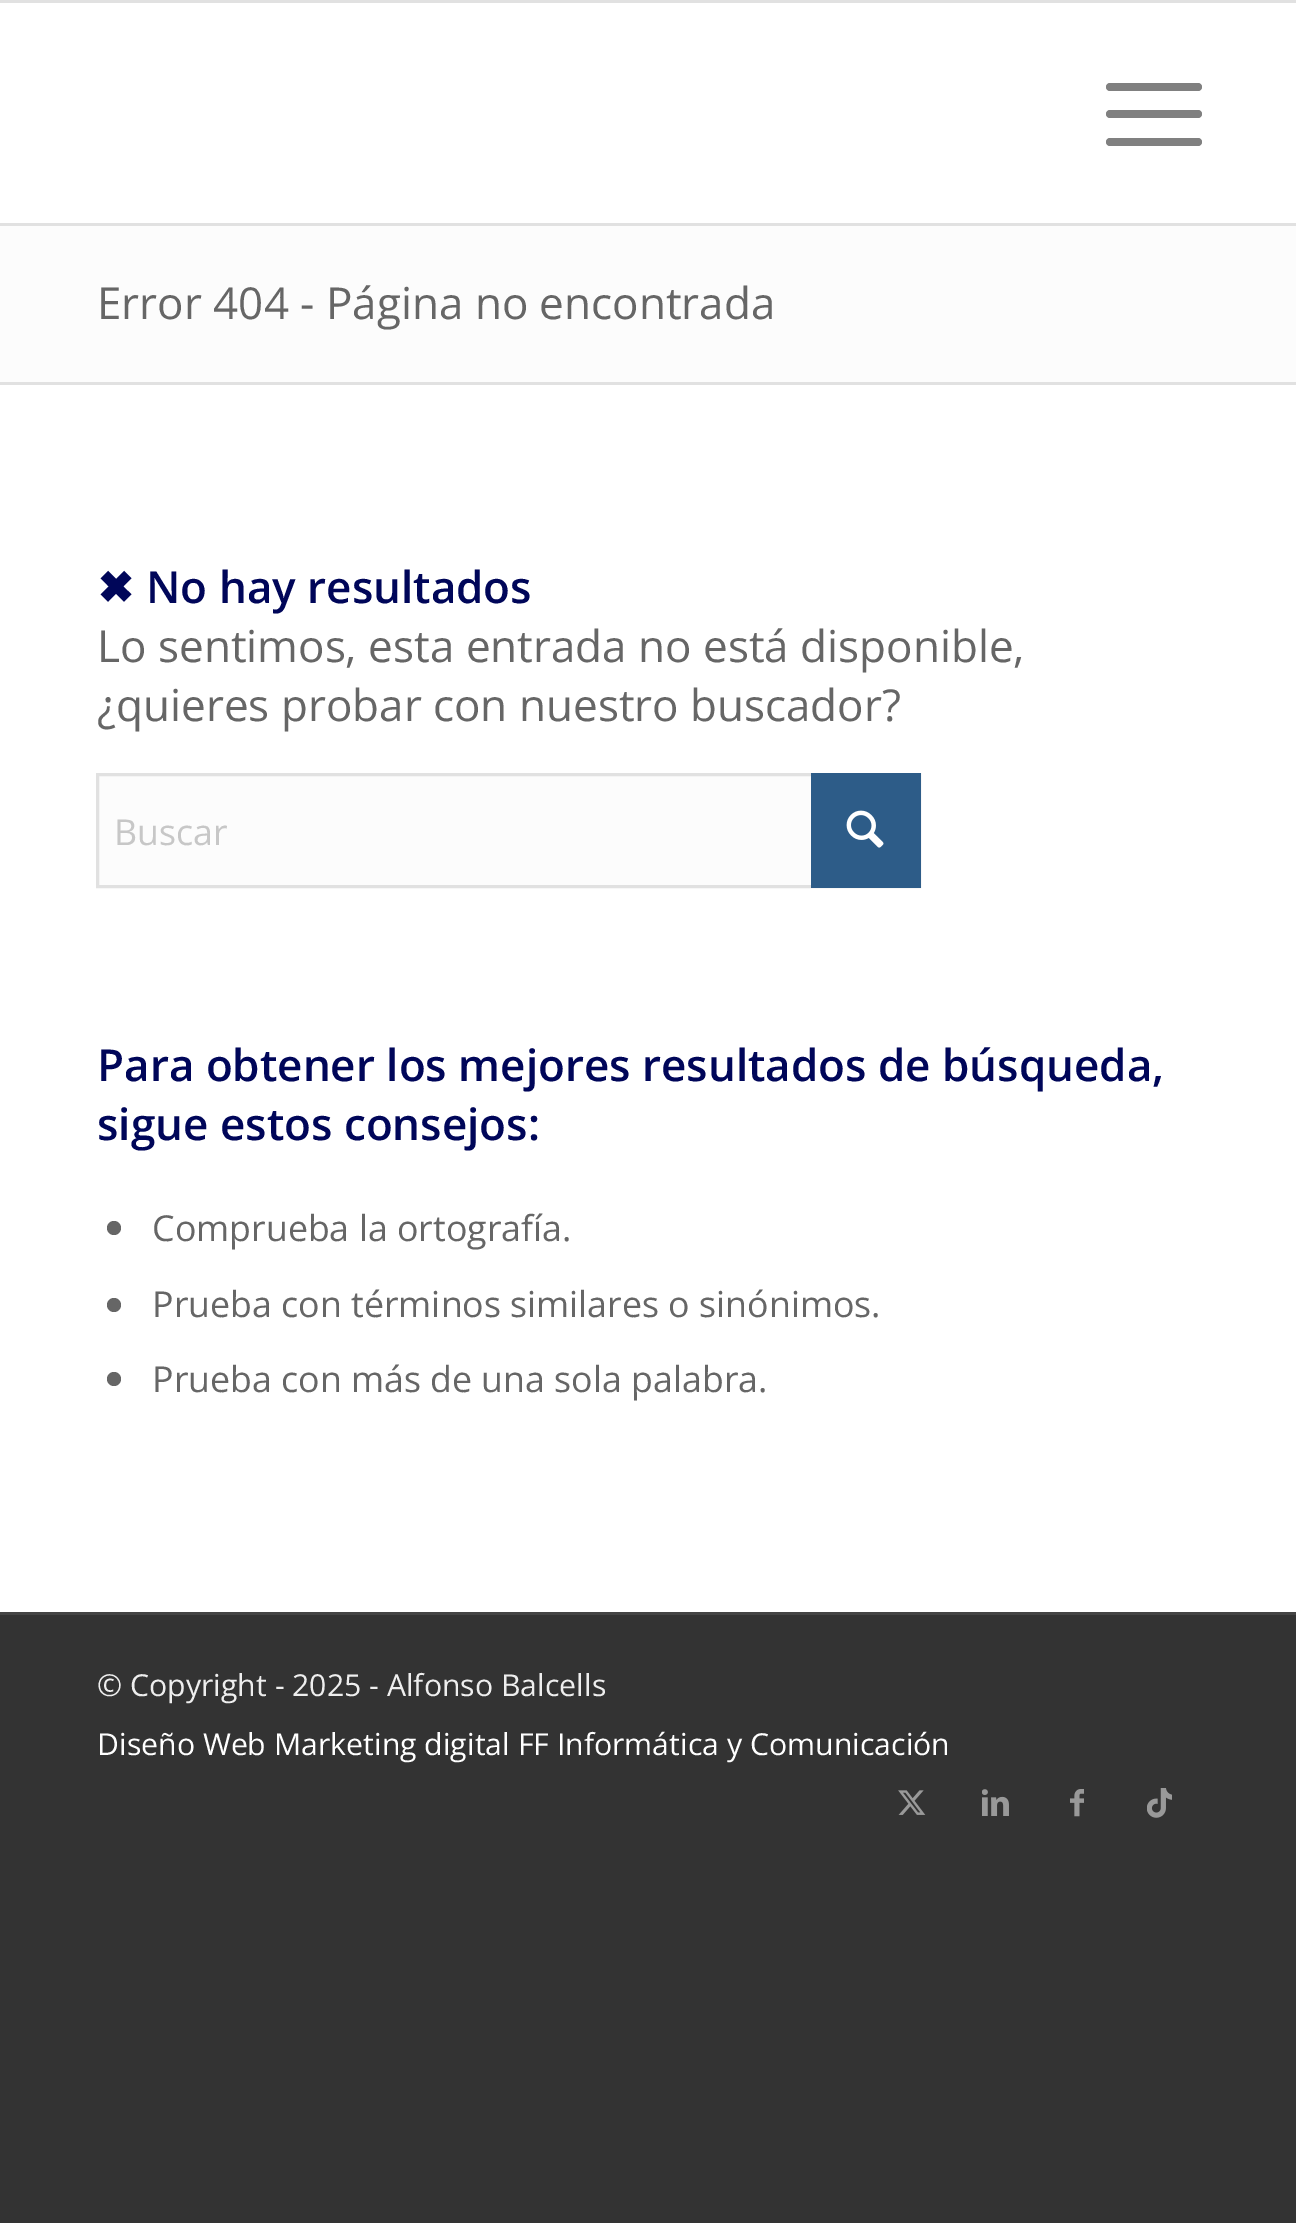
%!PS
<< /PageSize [1296 2223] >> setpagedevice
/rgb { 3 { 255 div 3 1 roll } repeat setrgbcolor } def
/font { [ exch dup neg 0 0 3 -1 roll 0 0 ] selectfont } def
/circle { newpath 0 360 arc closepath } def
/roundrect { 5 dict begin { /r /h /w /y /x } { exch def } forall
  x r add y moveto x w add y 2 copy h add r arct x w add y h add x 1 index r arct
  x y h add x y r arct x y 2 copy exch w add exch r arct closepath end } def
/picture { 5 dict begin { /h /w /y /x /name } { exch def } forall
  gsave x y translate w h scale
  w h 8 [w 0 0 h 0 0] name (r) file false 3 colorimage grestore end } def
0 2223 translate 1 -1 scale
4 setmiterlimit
51 51 51 rgb
0 0 1296 2223 rectfill
[
  [0 3 1296 1609 255 255 255]
  [0 0 1296 3 225 225 225]
  [0 223 1296 3 225 225 225]
] { aload pop rgb rectfill } forall
128 128 128 rgb
1106 110 96 8 4 roundrect fill
1106 83 96 8 4 roundrect fill
1106 138 96 8 4 roundrect fill
[
  [0 226 1296 156 252 252 252]
  [0 382 1296 3 225 225 225]
  [99 776 712 109 252 252 252]
] { aload pop rgb rectfill } forall
225 225 225 rgb
3 setlinewidth
97.5 774.5 822 112 rectstroke
45 92 136 rgb
811 773 110 115 rectfill
(img/1.rgb) 846 810 38 38 picture
102 102 102 rgb
114 1228 7 circle fill
114 1305 7 circle fill
114 1379 7 circle fill
68 68 68 rgb
0 1612 1296 3 rectfill
(img/2.rgb) 898 1790 28 25 picture
(img/3.rgb) 982 1789 27 27 picture
(img/4.rgb) 1070 1789 14 28 picture
(img/5.rgb) 1147 1788 25 30 picture
/OpenSans-Regular 44 font
102 102 102 rgb
97 319 moveto (Error 404 - Página no encontrada) show
/DejaVuSans-Bold 44 font
0 6 89 rgb
97 603 moveto (✖) show
/OpenSans-SemiBold 44 font
146 603 moveto (No hay resultados) show
/OpenSans-Regular 44 font
102 102 102 rgb
97 662 moveto (Lo sentimos, esta entrada no está disponible,) show
97 721 moveto (¿quieres probar con nuestro buscador?) show
/OpenSans-Regular 35.75 font
199 199 199 rgb
114 845 moveto (Buscar) show
/OpenSans-SemiBold 44 font
0 6 89 rgb
97 1081 moveto (Para obtener los mejores resultados de búsqueda,) show
97 1140 moveto (sigue estos consejos:) show
/OpenSans-Regular 35.75 font
102 102 102 rgb
[
  [(Comprueba la ortografía.) 152 1241]
  [(Prueba con términos similares o sinónimos.) 152 1317]
  [(Prueba con más de una sola palabra.) 152 1392]
] { aload pop moveto show } forall
/OpenSans-Regular 30.25 font
238 238 238 rgb
97 1696 moveto (© Copyright - 2025 - Alfonso Balcells) show
255 255 255 rgb
97 1755 moveto (Diseño Web Marketing digital FF Informática y Comunicación) show
showpage
